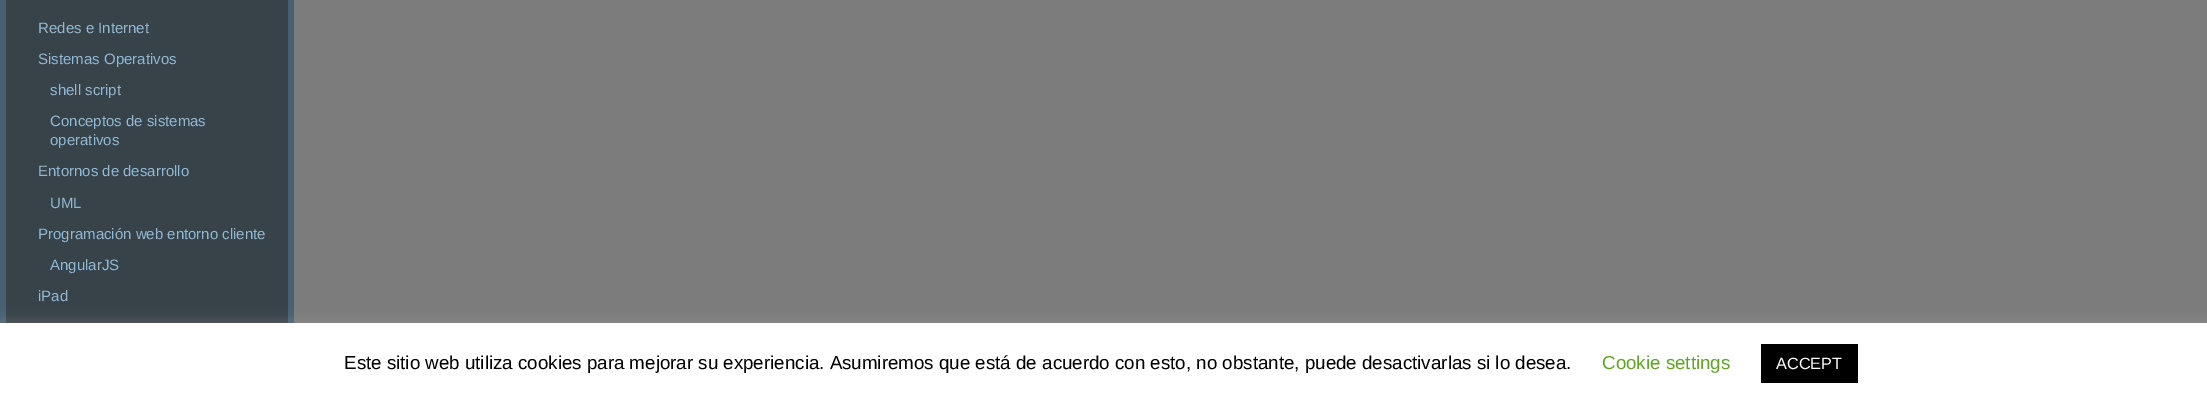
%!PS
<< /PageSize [2207 403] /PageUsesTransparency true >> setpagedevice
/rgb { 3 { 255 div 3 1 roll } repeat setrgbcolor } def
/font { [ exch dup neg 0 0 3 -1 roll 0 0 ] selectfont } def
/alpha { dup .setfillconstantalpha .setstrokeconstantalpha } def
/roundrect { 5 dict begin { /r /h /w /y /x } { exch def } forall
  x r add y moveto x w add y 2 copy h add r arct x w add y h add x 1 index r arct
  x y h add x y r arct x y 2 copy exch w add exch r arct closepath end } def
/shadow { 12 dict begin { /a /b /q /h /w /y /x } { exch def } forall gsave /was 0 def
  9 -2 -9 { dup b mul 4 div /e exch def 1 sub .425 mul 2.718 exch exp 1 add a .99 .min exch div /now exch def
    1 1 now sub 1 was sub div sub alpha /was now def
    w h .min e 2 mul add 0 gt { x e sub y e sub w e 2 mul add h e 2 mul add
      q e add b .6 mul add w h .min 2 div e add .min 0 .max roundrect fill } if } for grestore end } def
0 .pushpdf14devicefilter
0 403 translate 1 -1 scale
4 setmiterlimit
124 124 124 rgb
0 0 2207 403 rectfill
[
  [6 0 282 323 56 66 73]
  [288 0 6 323 71 97 114]
  [0 0 6 323 71 97 114]
] { aload pop rgb rectfill } forall
172 171 171 rgb
0 321 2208 82 0 6 0.3 shadow
255 255 255 rgb
0 323 2207 80 rectfill
0 0 0 rgb
1761 344 97 39 rectfill
/LiberationSans-Regular 15 font
143 185 212 rgb
[
  [(Redes e Internet) 38 33]
  [(Sistemas Operativos) 38 64]
  [(shell script) 50 95]
  [(Conceptos de sistemas) 50 126]
  [(operativos) 50 145]
  [(Entornos de desarrollo) 38 176]
  [(UML) 50 208]
  [(Programación web entorno cliente) 38 239]
  [(AngularJS) 50 270]
  [(iPad) 38 301]
] { aload pop moveto show } forall
/LiberationSans-Regular 18.75 font
0 0 0 rgb
344 369 moveto (Este sitio web utiliza cookies para mejorar su experiencia. Asumiremos que está de acuerdo con esto, no obstante, puede desactivarlas si lo desea.) show
98 163 41 rgb
1602 369 moveto (Cookie settings) show
/LiberationSans-Regular 16.25 font
255 255 255 rgb
1776 369 moveto (ACCEPT) show
.poppdf14devicefilter showpage
